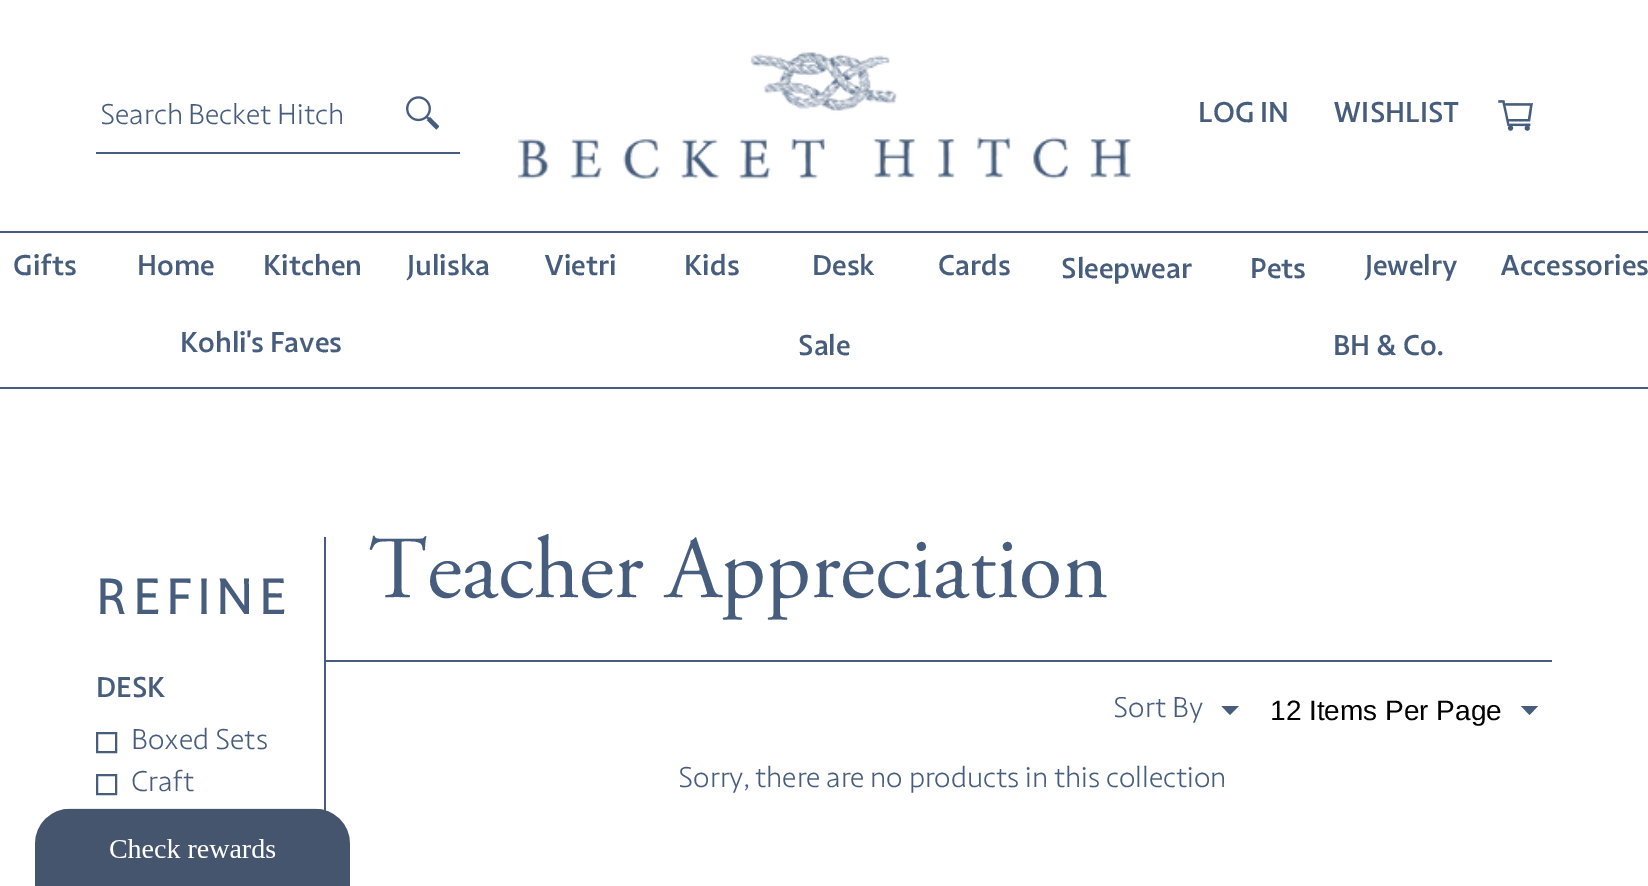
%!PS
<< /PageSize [1648 886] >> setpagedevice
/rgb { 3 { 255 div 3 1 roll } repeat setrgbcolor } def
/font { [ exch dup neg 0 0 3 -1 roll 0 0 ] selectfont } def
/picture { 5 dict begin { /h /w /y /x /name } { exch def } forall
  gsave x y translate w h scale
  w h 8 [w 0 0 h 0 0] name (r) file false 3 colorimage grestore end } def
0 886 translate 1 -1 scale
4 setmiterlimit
255 255 255 rgb
0 0 1648 886 rectfill
71 93 125 rgb
0 231 1648 2 rectfill
96 152 364 2 rectfill
(img/1.rgb) 406 96 33 34 picture
(img/2.rgb) 518 52 613 127 picture
(img/3.rgb) 1498 100 35 31 picture
0 387 1648 2 rectfill
324 537 2 274 rectfill
2 setlinewidth
97 733 19 19 rectstroke
97 775 19 19 rectstroke
326 660 1226 2 rectfill
1230 715 moveto 1221.5 706 lineto 1239 706 lineto closepath fill
1529.5 715 moveto 1521 706 lineto 1538 706 lineto closepath fill
(img/4.rgb) 35 808 315 78 picture
gsave
100 103 282 28 rectclip
/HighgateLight-Light 28 font
100 124 moveto (Search Becket Hitch) show
grestore
/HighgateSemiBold-SemiBold 28 font
[
  [(LOG IN) 1198 122]
  [(WISHLIST) 1333 122]
  [(Gifts) 13 275]
  [(Home) 137 275]
  [(Kitchen) 263 275]
  [(Juliska) 407 275]
  [(Vietri) 544 275]
  [(Kids) 684 275]
  [(Desk) 812 275]
  [(Cards) 938 275]
  [(Sleepwear) 1061 278]
  [(Pets) 1250 278]
  [(Jewelry) 1365 275]
  [(Accessories) 1500 275]
  [(Kohli's Faves) 180 352]
  [(Sale) 798 355]
  [(BH & Co.) 1333 355]
] { aload pop moveto show } forall
/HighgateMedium-Medium 50 font
96 614 moveto 5.25 0 (REFINE) ashow
/HighgateSemiBold-SemiBold 28 font
96 697 moveto (DESK) show
/HighgateLight-Light 28 font
131 749 moveto (Boxed Sets) show
131 791 moveto (Craft) show
/AdobeGaramond-Regular 88.5 font
369 597 moveto (Teacher Appreciation) show
gsave
1113 697 91 28 rectclip
/HighgateLight-Light 28 font
1113 717 moveto (Sort By) show
grestore
/LiberationSans-Regular 28 font
0 0 0 rgb
1270 720 moveto (12 Items Per Page) show
/HighgateLight-Light 28 font
71 93 125 rgb
678 787 moveto (Sorry, there are no products in this collection) show
showpage
